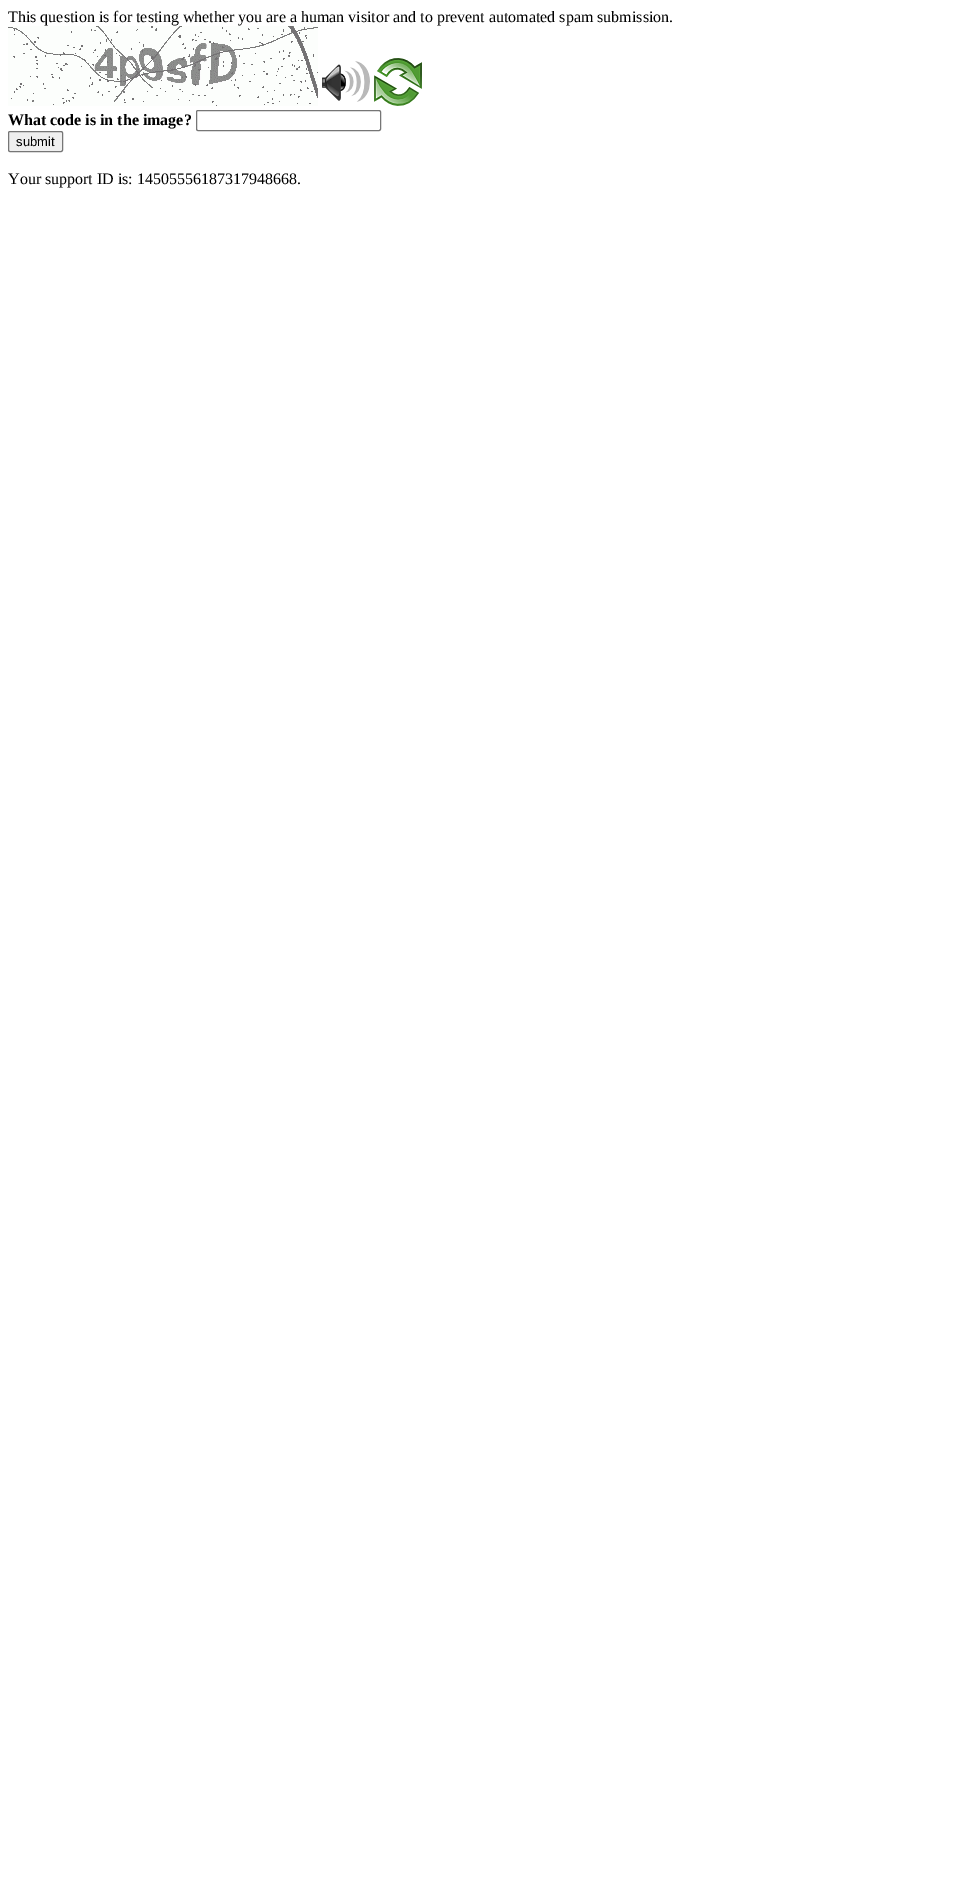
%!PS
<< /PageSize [958 1899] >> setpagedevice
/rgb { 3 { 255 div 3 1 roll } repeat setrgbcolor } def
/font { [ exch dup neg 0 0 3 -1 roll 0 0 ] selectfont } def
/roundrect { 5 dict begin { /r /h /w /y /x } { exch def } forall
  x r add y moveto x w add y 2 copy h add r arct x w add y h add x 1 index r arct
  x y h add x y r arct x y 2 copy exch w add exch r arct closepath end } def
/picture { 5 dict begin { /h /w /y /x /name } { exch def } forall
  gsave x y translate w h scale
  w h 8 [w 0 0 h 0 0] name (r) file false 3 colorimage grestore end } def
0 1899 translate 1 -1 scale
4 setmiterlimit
255 255 255 rgb
0 0 958 1899 rectfill
(img/1.rgb) 8 26 310 80 picture
(img/2.rgb) 322 61 48 41 picture
(img/3.rgb) 374 58 48 48 picture
118 118 118 rgb
196.5 110.5 184 20 1.5 roundrect stroke
239 239 239 rgb
8.5 131.5 54 20 1.5 roundrect gsave fill grestore
118 118 118 rgb
stroke
/LiberationSerif-Regular 16 font
0 0 0 rgb
8 22 moveto (This question is for testing whether you are a human visitor and to prevent automated spam submission.) show
/LiberationSerif-Bold 16 font
8 125 moveto (What code is in the image?) show
/LiberationSans-Regular 13 font
16 146 moveto (submit) show
/LiberationSerif-Regular 16 font
8 184 moveto (Your support ID is: 14505556187317948668.) show
showpage
